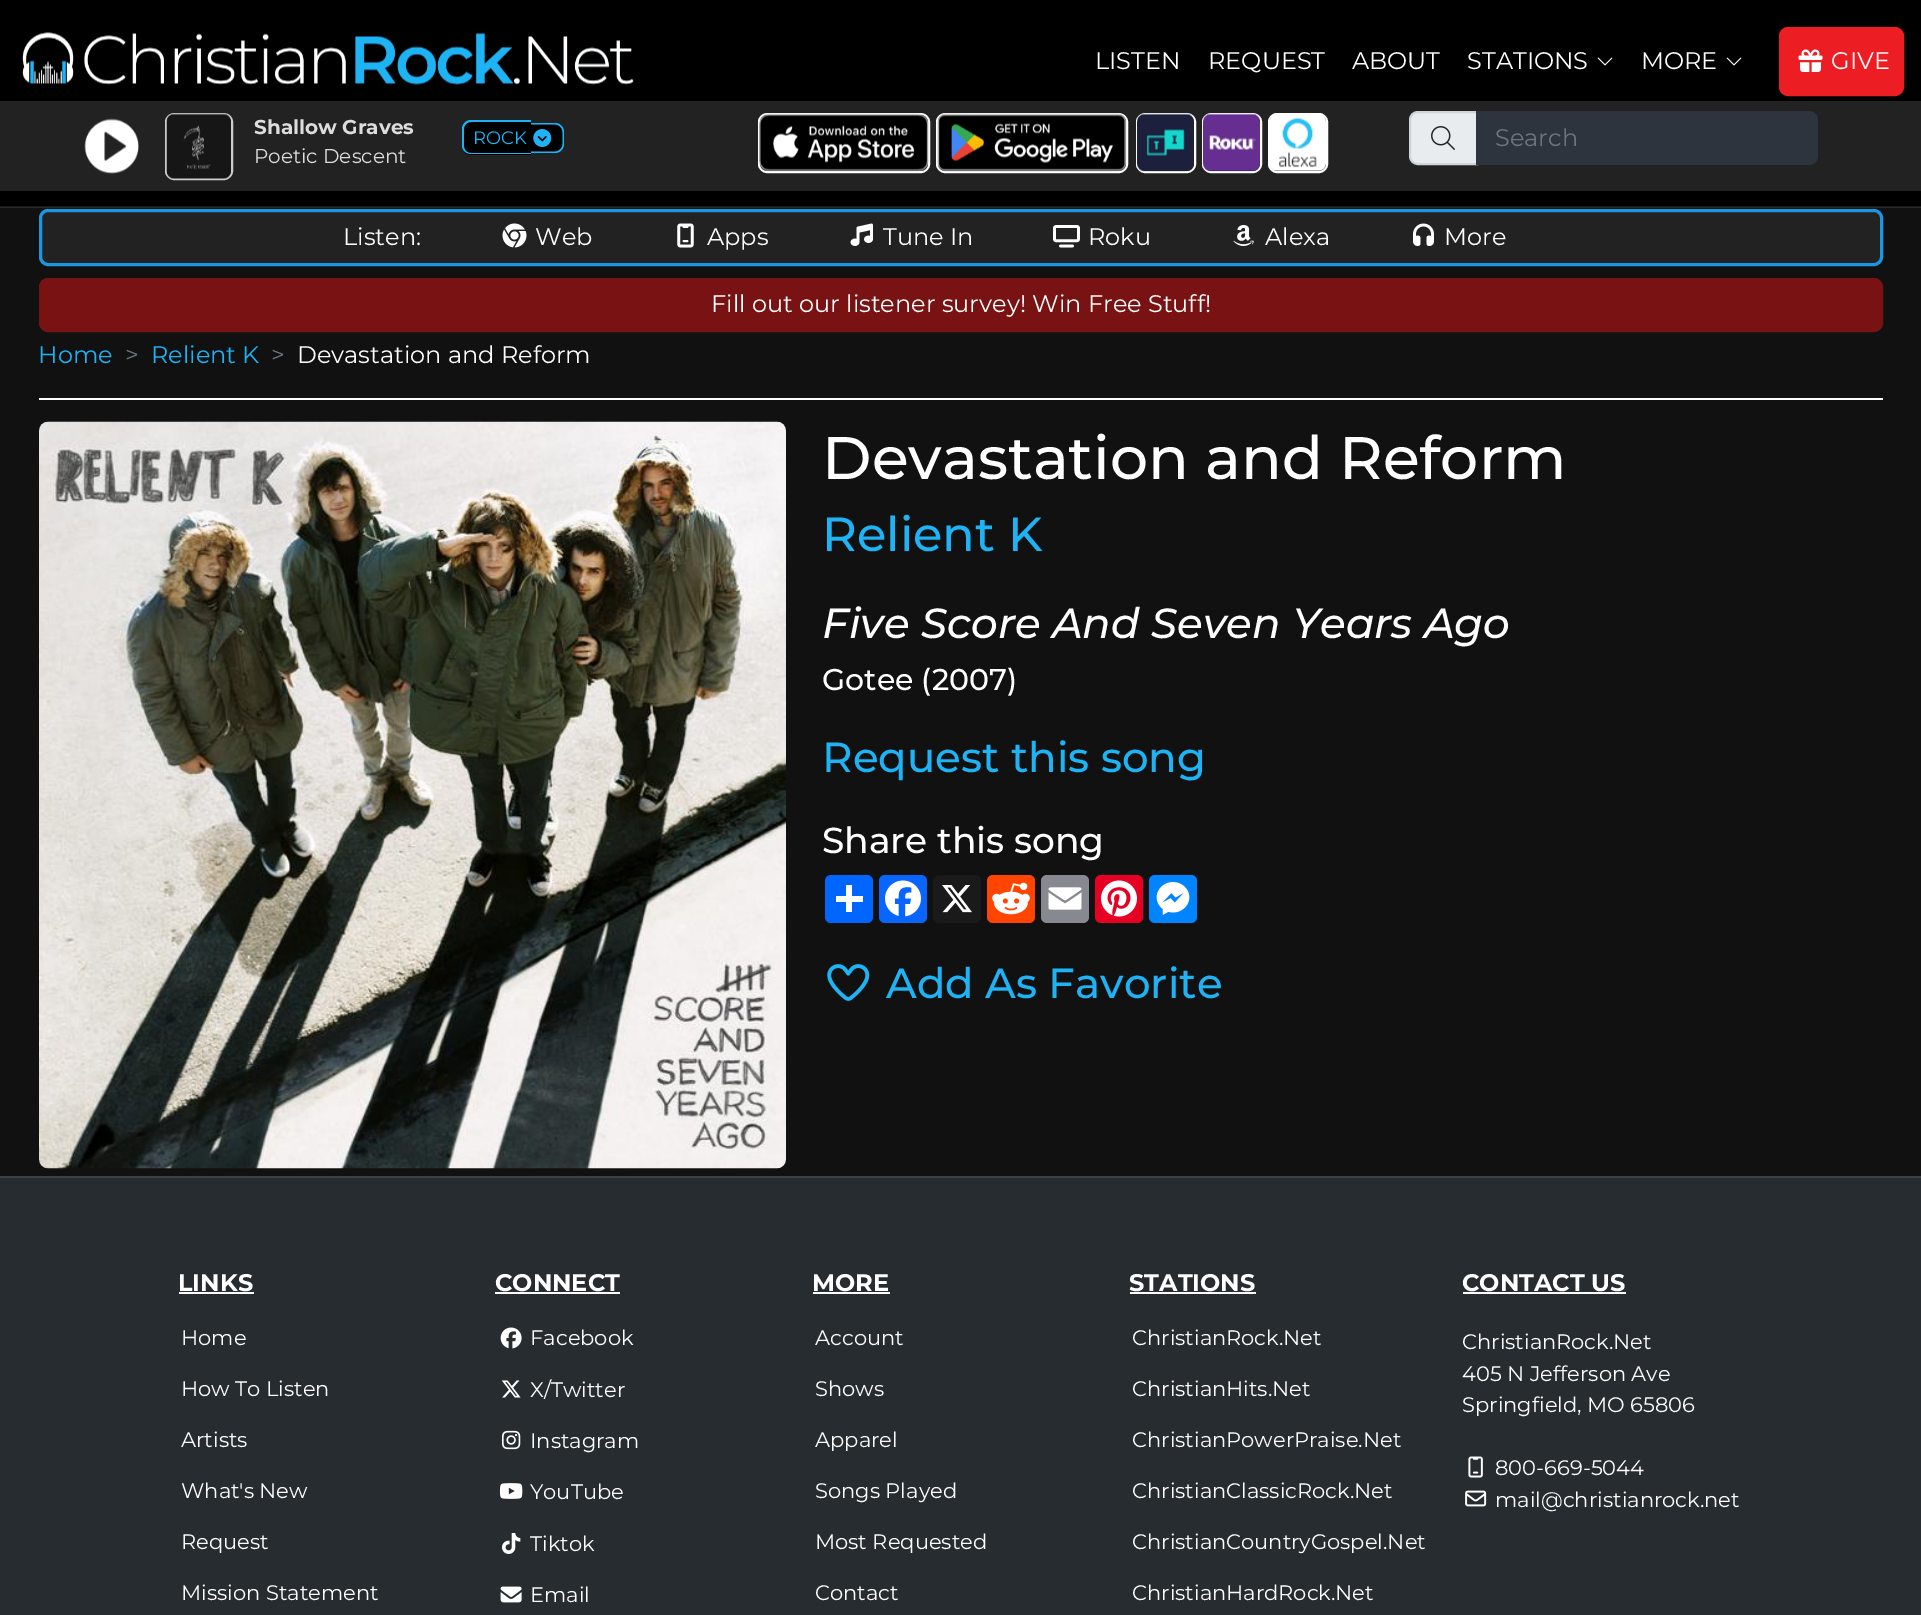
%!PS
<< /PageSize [1921 1615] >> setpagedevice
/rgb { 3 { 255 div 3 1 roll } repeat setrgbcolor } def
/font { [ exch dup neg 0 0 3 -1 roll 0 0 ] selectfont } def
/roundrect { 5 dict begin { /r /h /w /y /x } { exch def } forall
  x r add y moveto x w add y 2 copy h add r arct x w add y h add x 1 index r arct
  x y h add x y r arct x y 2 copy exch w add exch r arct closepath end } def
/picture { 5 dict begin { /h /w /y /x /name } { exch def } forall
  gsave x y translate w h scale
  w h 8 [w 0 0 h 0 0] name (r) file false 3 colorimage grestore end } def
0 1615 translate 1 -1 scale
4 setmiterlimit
17 17 17 rgb
0 0 1921 1615 rectfill
[
  [0 207 1921 1 41 41 41]
  [0 0 1921 206 0 0 0]
  [0 206 1921 1 26 26 26]
] { aload pop rgb rectfill } forall
(img/1.rgb) 22 32 612 53 picture
(img/2.rgb) 1597 57 16 9 picture
(img/2.rgb) 1726 57 16 9 picture
237 29 36 rgb
1780 28 123 67 8 roundrect gsave fill grestore
2 setlinewidth
stroke
(img/3.rgb) 1798 49 25 23 picture
34 34 34 rgb
0 101 1921 90 rectfill
(img/4.rgb) 84 118 55 56 picture
204 204 204 rgb
166 114 66 65 8 roundrect stroke
(img/5.rgb) 166 113 65 66 picture
0 0 0 rgb
471 120 moveto 531 120 lineto 531 155 lineto 471 155 lineto 466 155 462 151 462 146 curveto 462 129 lineto 462 124 466 120 471 120 curveto closepath fill
30 179 244 rgb
471 120 moveto 531 120 lineto 531 154 lineto 471 154 lineto 466 154 462 150 462 146 curveto 462 129 lineto 462 124 466 120 471 120 curveto closepath 471 122 moveto 531 122 lineto 531 153 lineto 471 153 lineto 467 153 464 150 464 146 curveto 464 129 lineto 464 125 467 122 471 122 curveto closepath eofill
0 0 0 rgb
531 123 moveto 555 123 lineto 560 123 564 127 564 132 curveto 564 144 lineto 564 149 560 153 555 153 curveto 531 153 lineto closepath fill
30 179 244 rgb
531 123 moveto 555 123 lineto 560 123 564 127 564 132 curveto 564 144 lineto 564 149 560 153 555 153 curveto 531 153 lineto closepath 531 124.5 moveto 555 124.5 lineto 559 124.5 562.5 128 562.5 132 curveto 562.5 144 lineto 562.5 148 559 151.5 555 151.5 curveto 531 151.5 lineto closepath eofill
(img/6.rgb) 533 129 19 18 picture
255 255 255 rgb
759 114 170 58 8 roundrect stroke
(img/7.rgb) 759 113 170 59 picture
937 114 190 58 8 roundrect stroke
(img/8.rgb) 937 113 190 59 picture
1137 114 58 58 8 roundrect stroke
(img/9.rgb) 1137 113 57 59 picture
1203 114 58 58 8 roundrect stroke
(img/10.rgb) 1203 113 57 59 picture
1269 114 58 58 8 roundrect stroke
(img/11.rgb) 1270 114 56 57 picture
233 236 239 rgb
1418 112 moveto 1477 112 lineto 1477 164 lineto 1418 164 lineto 1413.5 164 1410 160.5 1410 156 curveto 1410 120 lineto 1410 115.5 1413.5 112 1418 112 curveto closepath gsave fill grestore
206 212 218 rgb
stroke
(img/12.rgb) 1431 126 24 24 picture
45 52 61 rgb
1476 111 moveto 1809 111 lineto 1814 111 1818 115 1818 120 curveto 1818 156 lineto 1818 161 1814 165 1809 165 curveto 1476 165 lineto closepath fill
34 34 34 rgb
40.5 210.5 1841 54 7.5 roundrect gsave fill grestore
25 151 229 rgb
3 setlinewidth
stroke
(img/13.rgb) 502 223 25 25 picture
(img/14.rgb) 677 223 17 25 picture
(img/15.rgb) 850 223 23 23 picture
(img/16.rgb) 1053 225 27 23 picture
(img/17.rgb) 1233 225 21 21 picture
(img/18.rgb) 1413 223 21 23 picture
121 19 19 rgb
40.5 279.5 1841 51 7.5 roundrect gsave fill grestore
stroke
255 255 255 rgb
39 398 1844 2 rectfill
(img/19.rgb) 39 421 747 748 picture
1 102 255 rgb
825 875 48 48 6 roundrect fill
255 255 255 rgb
846 885 6 27 rectfill
836 896 27 6 rectfill
8 102 255 rgb
879 875 48 48 6 roundrect fill
(img/20.rgb) 885 880 36 37 picture
26 26 26 rgb
933 875 48 48 6 roundrect fill
(img/21.rgb) 942 885 30 28 picture
255 69 0 rgb
987 875 48 48 6 roundrect fill
(img/22.rgb) 992 882 38 33 picture
136 137 144 rgb
1041 875 48 48 6 roundrect fill
(img/23.rgb) 1048 887 34 23 picture
230 0 35 rgb
1095 875 48 48 6 roundrect fill
(img/24.rgb) 1101 880 36 37 picture
0 132 255 rgb
1149 875 48 48 6 roundrect fill
(img/25.rgb) 1156 882 34 33 picture
(img/26.rgb) 827 964 43 37 picture
[
  [0 1178 1921 437 39 44 48]
  [0 1176 1921 2 57 64 71]
  [179 1292 75 2 255 255 255]
  [495 1292 125 2 255 255 255]
] { aload pop rgb rectfill } forall
(img/27.rgb) 500 1327 22 22 picture
(img/28.rgb) 501 1380 20 18 picture
(img/29.rgb) 502 1430 19 20 picture
(img/30.rgb) 499 1483 24 16 picture
(img/31.rgb) 501 1533 20 21 picture
(img/32.rgb) 500 1586 22 17 picture
[
  [813 1292 77 2 255 255 255]
  [1130 1292 126 2 255 255 255]
  [1463 1292 163 2 255 255 255]
] { aload pop rgb rectfill } forall
(img/33.rgb) 1468 1456 15 22 picture
(img/34.rgb) 1465 1490 22 17 picture
/Montserrat-Regular 24 font
[
  [(LISTEN) 1095 69]
  [(REQUEST) 1208 69]
  [(ABOUT) 1352 69]
  [(STATIONS) 1467 69]
  [(MORE) 1641 69]
  [(GIVE) 1831 69]
] { aload pop moveto show } forall
/Montserrat-Bold 20 font
221 221 221 rgb
254 134 moveto (Shallow Graves) show
/Montserrat-Regular 20 font
254 163 moveto (Poetic Descent) show
/Montserrat-Regular 18 font
30 179 244 rgb
473 144 moveto (ROCK) show
/Montserrat-Regular 24 font
108 117 125 rgb
1495 146 moveto (Search) show
255 255 255 rgb
[
  [(Listen:) 343 245]
  [(Web) 535 245]
  [(Apps) 707 245]
  [(Tune In) 883 245]
  [(Roku) 1088 245]
  [(Alexa) 1265 245]
  [(More) 1444 245]
  [(Fill out our listener survey! Win Free Stuff!) 711 312]
] { aload pop moveto show } forall
30 179 244 rgb
38 363 moveto (Home) show
108 117 125 rgb
125 363 moveto (>) show
30 179 244 rgb
151 363 moveto (Relient K) show
108 117 125 rgb
271 363 moveto (>) show
255 255 255 rgb
297 363 moveto (Devastation and Reform) show
/Montserrat-Medium 60 font
822 479 moveto (Devastation and Reform) show
/Montserrat-Medium 48 font
30 179 244 rgb
822 551 moveto (Relient K) show
/Montserrat-MediumItalic 42 font
255 255 255 rgb
822 638 moveto (Five Score And Seven Years Ago) show
/Montserrat-Medium 30 font
822 690 moveto (Gotee \(2007\)) show
/Montserrat-Medium 42 font
30 179 244 rgb
822 772 moveto (Request this song) show
/Montserrat-Medium 36 font
255 255 255 rgb
822 853 moveto (Share this song) show
/Montserrat-Medium 42 font
30 179 244 rgb
886 998 moveto (Add As Favorite) show
/Montserrat-Bold 24 font
255 255 255 rgb
178 1291 moveto (LINKS) show
/Montserrat-Regular 21 font
[
  [(Home) 181 1345]
  [(How To Listen) 181 1396]
  [(Artists) 181 1447]
  [(What's New) 181 1498]
  [(Request) 181 1549]
  [(Mission Statement) 181 1600]
] { aload pop moveto show } forall
/Montserrat-Bold 24 font
495 1291 moveto (CONNECT) show
/Montserrat-Regular 21 font
[
  [(Facebook) 530 1345]
  [(X/Twitter) 530 1397]
  [(Instagram) 530 1448]
  [(YouTube) 530 1499]
  [(Tiktok) 530 1551]
  [(Email) 530 1602]
] { aload pop moveto show } forall
/Montserrat-Bold 24 font
812 1291 moveto (MORE) show
/Montserrat-Regular 21 font
[
  [(Account) 815 1345]
  [(Shows) 815 1396]
  [(Apparel) 815 1447]
  [(Songs Played) 815 1498]
  [(Most Requested) 815 1549]
  [(Contact) 815 1600]
] { aload pop moveto show } forall
/Montserrat-Bold 24 font
1129 1291 moveto (STATIONS) show
/Montserrat-Regular 21 font
[
  [(ChristianRock.Net) 1132 1345]
  [(ChristianHits.Net) 1132 1396]
  [(ChristianPowerPraise.Net) 1132 1447]
  [(ChristianClassicRock.Net) 1132 1498]
  [(ChristianCountryGospel.Net) 1132 1549]
  [(ChristianHardRock.Net) 1132 1600]
] { aload pop moveto show } forall
/Montserrat-Bold 24 font
1462 1291 moveto (CONTACT US) show
/Montserrat-Regular 21 font
[
  [(ChristianRock.Net) 1462 1349]
  [(405 N Jefferson Ave) 1462 1381]
  [(Springfield, MO 65806) 1462 1412]
  [(800-669-5044) 1495 1475]
  [(mail@christianrock.net) 1495 1507]
] { aload pop moveto show } forall
showpage
